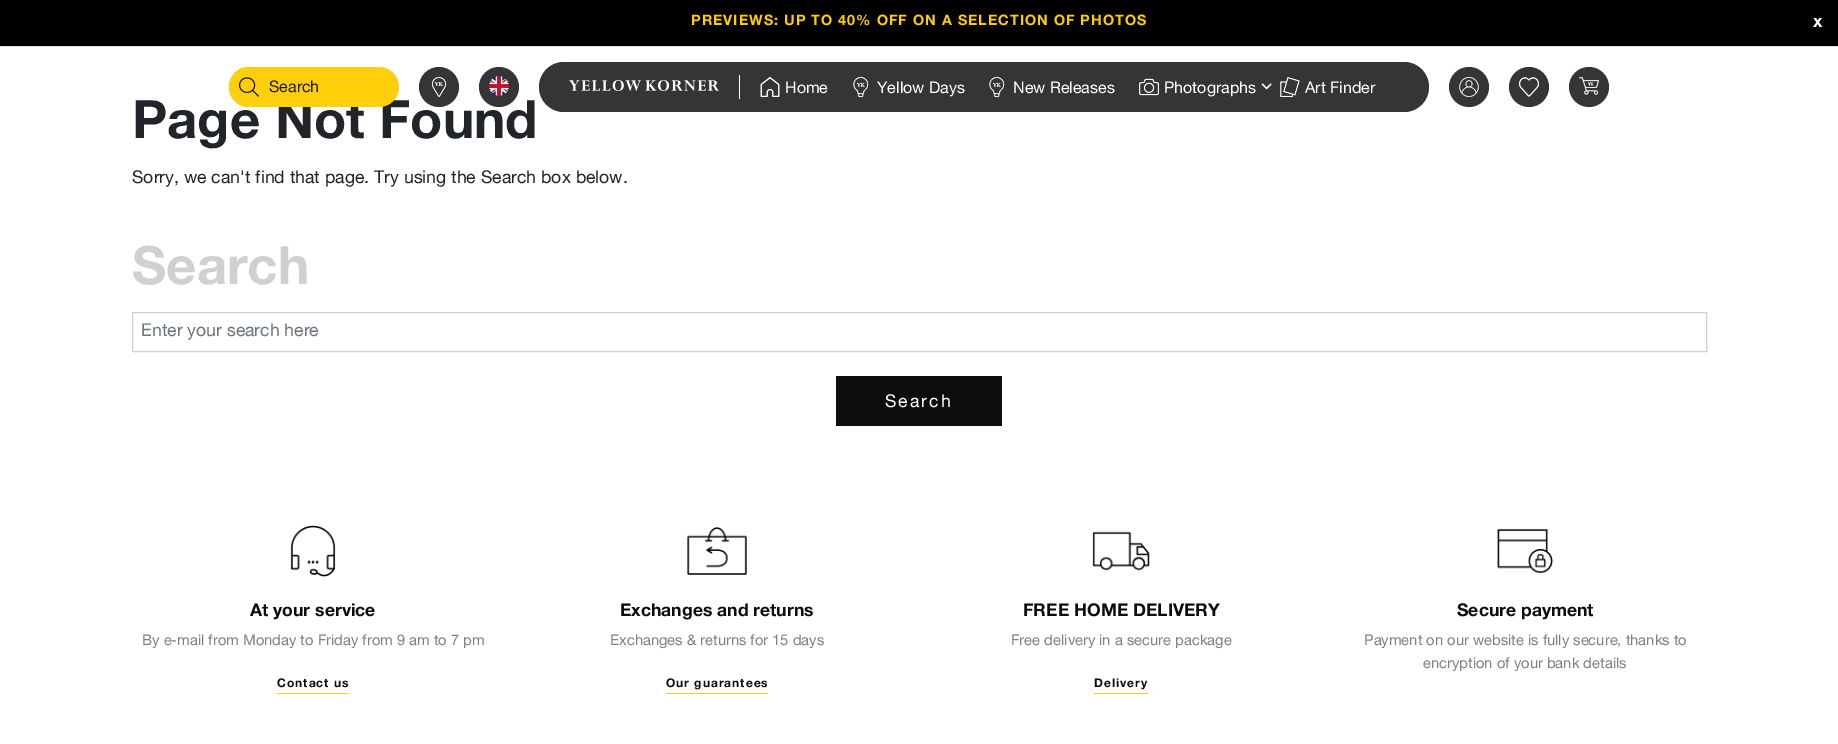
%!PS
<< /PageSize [1838 744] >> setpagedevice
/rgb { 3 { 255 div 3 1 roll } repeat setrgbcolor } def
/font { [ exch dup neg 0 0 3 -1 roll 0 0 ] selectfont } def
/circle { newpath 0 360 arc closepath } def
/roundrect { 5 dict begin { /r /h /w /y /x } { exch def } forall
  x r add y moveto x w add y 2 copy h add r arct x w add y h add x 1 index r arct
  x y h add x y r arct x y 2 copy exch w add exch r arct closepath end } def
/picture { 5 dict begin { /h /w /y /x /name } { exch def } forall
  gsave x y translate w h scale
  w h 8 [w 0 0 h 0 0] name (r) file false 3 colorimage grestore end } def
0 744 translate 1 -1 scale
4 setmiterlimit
255 255 255 rgb
0 0 1838 744 rectfill
222 226 230 rgb
0 46 1838 1 rectfill
0 0 0 rgb
0 0 1838 46 rectfill
53 53 53 rgb
539 62 890 50 25 roundrect fill
255 255 255 rgb
739 75 1 24 rectfill
(img/4.rgb) 569 80 150 11 picture
(img/5.rgb) 760 77 20 20 picture
(img/6.rgb) 853 77 16 20 picture
(img/6.rgb) 989 77 16 20 picture
(img/7.rgb) 1139 78 20 18 picture
(img/8.rgb) 1261 83 11 7 picture
(img/9.rgb) 1280 77 20 20 picture
53 53 53 rgb
1469 87 20 circle fill
(img/10.rgb) 1459 77 20 20 picture
1529 87 20 circle fill
(img/11.rgb) 1519 77 20 20 picture
1589 87 20 circle fill
(img/12.rgb) 1579 77 20 18 picture
208 208 209 rgb
132.5 312.5 1574 39 rectstroke
13 13 13 rgb
836 376 166 50 rectfill
(img/13.rgb) 290 525 46 52 picture
255 207 11 rgb
277 693 72 1 rectfill
(img/14.rgb) 687 527 60 48 picture
666 693 102 1 rectfill
(img/15.rgb) 1092 531 58 40 picture
1094 693 54 1 rectfill
(img/16.rgb) 1497 528 56 46 picture
/HelveticaNeue-Bold 14.4 font
255 206 0 rgb
691 25 moveto 1 0 (PREVIEWS: UP TO 40% OFF ON A SELECTION OF PHOTOS) ashow
/HelveticaNeue-Bold 17.6 font
255 255 255 rgb
1813 27 moveto (x) show
/HelveticaNeue-Regular 16 font
[
  [(Home) 785 93]
  [(Yellow Days) 877 93]
  [(New Releases) 1013 93]
  [(Photographs) 1164 93]
  [(Art Finder) 1305 93]
] { aload pop moveto show } forall
/HelveticaNeue-Bold 52.75 font
33 37 41 rgb
132 138 moveto (Page Not Found) show
53 53 53 rgb
499 87 20 circle fill
(img/3.rgb) 489 76 20 20 picture
439 87 20 circle fill
(img/2.rgb) 431 77 16 20 picture
255 207 11 rgb
229 67 170 40 20 roundrect fill
249 87 20 circle fill
(img/1.rgb) 239 77 20 20 picture
/HelveticaNeue-Regular 16 font
30 30 37 rgb
269 92 moveto (Search) show
/HelveticaNeue-Regular 17.6 font
33 37 41 rgb
132 183 moveto (Sorry, we can't find that page. Try using the Search box below.) show
/HelveticaNeue-Bold 52.75 font
208 208 209 rgb
132 284 moveto (Search) show
/HelveticaNeue-Regular 17.6 font
108 117 125 rgb
141 336 moveto (Enter your search here) show
255 255 255 rgb
885 407 moveto 2 0 (Search) ashow
/HelveticaNeue-Bold 17.6 font
13 13 13 rgb
250 616 moveto (At your service) show
/HelveticaNeue-Regular 14.75 font
128 128 128 rgb
142 645 moveto (By e-mail from Monday to Friday from 9 am to 7 pm) show
/HelveticaNeue-Bold 12 font
13 13 13 rgb
277 687 moveto 1 0 (Contact us) ashow
/HelveticaNeue-Bold 17.6 font
620 616 moveto (Exchanges and returns) show
/HelveticaNeue-Regular 14.75 font
128 128 128 rgb
610 645 moveto (Exchanges & returns for 15 days) show
/HelveticaNeue-Bold 12 font
13 13 13 rgb
666 687 moveto 1 0 (Our guarantees) ashow
/HelveticaNeue-Bold 17.6 font
1023 616 moveto (FREE HOME DELIVERY) show
/HelveticaNeue-Regular 14.75 font
128 128 128 rgb
1011 645 moveto (Free delivery in a secure package) show
/HelveticaNeue-Bold 12 font
13 13 13 rgb
1094 687 moveto 1 0 (Delivery) ashow
/HelveticaNeue-Bold 17.6 font
1457 616 moveto (Secure payment) show
/HelveticaNeue-Regular 14.75 font
128 128 128 rgb
1364 645 moveto (Payment on our website is fully secure, thanks to) show
1423 668 moveto (encryption of your bank details) show
showpage
